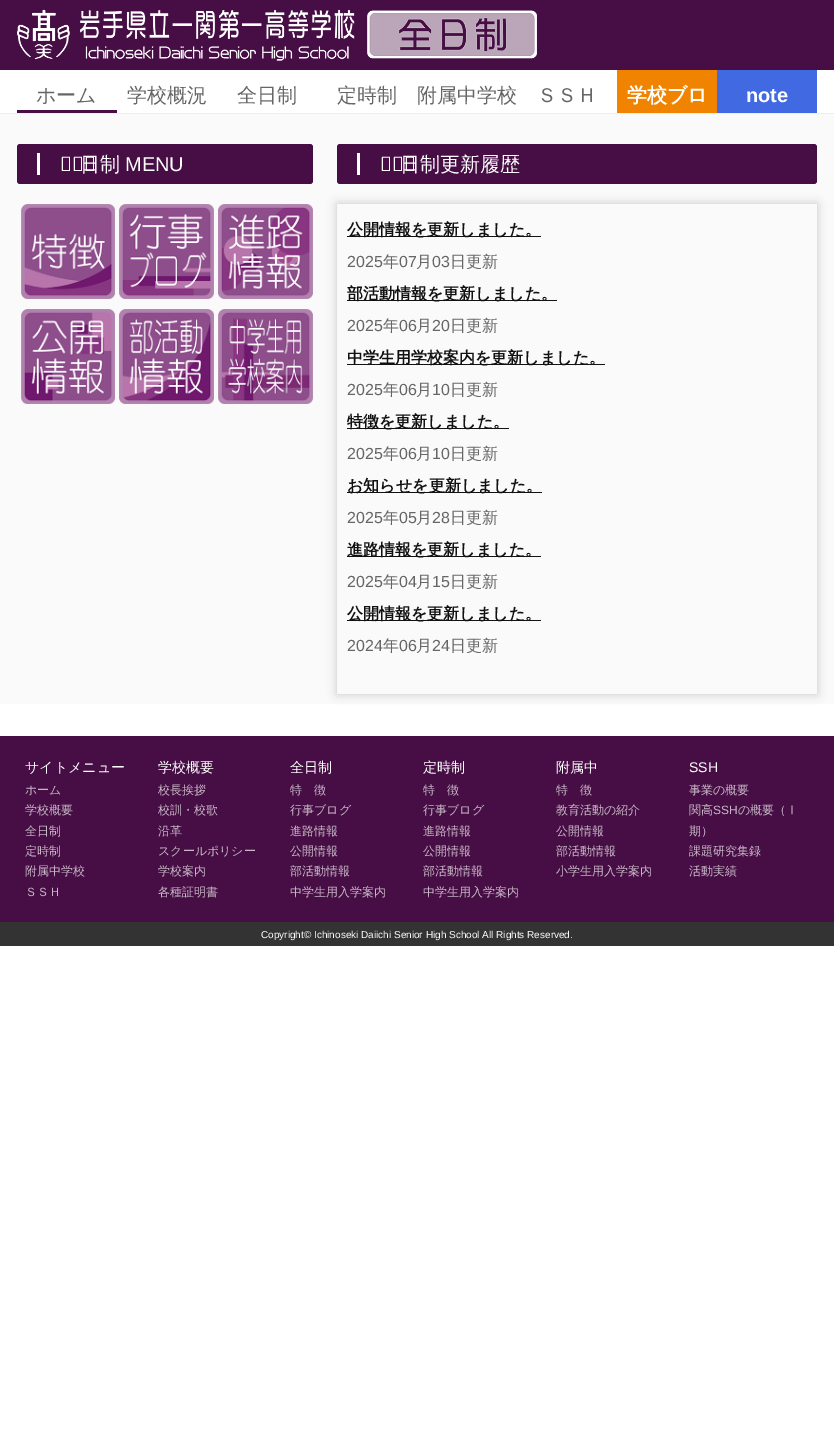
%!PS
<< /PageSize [834 1429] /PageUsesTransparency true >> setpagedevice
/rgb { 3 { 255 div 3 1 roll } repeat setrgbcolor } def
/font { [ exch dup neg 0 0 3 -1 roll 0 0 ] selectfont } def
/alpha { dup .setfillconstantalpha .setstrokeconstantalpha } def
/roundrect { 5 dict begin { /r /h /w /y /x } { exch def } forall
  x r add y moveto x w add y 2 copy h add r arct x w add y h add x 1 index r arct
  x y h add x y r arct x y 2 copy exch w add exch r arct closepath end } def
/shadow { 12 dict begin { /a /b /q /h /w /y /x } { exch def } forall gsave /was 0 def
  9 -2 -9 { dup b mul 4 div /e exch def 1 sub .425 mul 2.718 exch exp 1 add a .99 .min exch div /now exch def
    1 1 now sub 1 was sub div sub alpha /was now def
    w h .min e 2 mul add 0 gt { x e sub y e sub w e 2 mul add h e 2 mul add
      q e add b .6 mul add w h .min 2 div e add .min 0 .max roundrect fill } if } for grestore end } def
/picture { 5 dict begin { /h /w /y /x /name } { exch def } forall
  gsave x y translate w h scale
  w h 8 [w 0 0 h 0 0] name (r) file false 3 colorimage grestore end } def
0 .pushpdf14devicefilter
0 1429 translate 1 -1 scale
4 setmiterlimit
255 255 255 rgb
0 0 834 1429 rectfill
70 14 68 rgb
0 0 834 70 rectfill
(img/1.rgb) 17 9 520 52 picture
[
  [0 113 834 1 238 238 238]
  [17 110 100 3 70 14 68]
  [617 70 100 43 240 131 0]
  [717 70 100 43 65 105 225]
  [0 114 834 590 250 250 250]
] { aload pop rgb rectfill } forall
70 14 68 rgb
17 144 296 40 3 roundrect fill
255 255 255 rgb
37 153 3 22 rectfill
(img/2.rgb) 21 204 94 95 picture
(img/3.rgb) 119 204 95 95 picture
(img/4.rgb) 218 204 95 95 picture
(img/5.rgb) 21 309 94 95 picture
(img/6.rgb) 119 309 95 95 picture
(img/7.rgb) 218 309 95 95 picture
70 14 68 rgb
337 144 480 40 3 roundrect fill
255 255 255 rgb
357 153 3 22 rectfill
gsave
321 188 moveto 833 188 lineto 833 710 lineto 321 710 lineto closepath 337 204 moveto 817 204 lineto 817 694 lineto 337 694 lineto closepath eoclip newpath
0 0 0 rgb
337 204 480 490 0 5 0.2 shadow
grestore
[
  [347 236 194 1 17 17 17]
  [347 300 210 1 17 17 17]
  [347 364 258 1 17 17 17]
  [347 428 162 1 17 17 17]
  [347 492 195 1 17 17 17]
  [347 556 194 1 17 17 17]
  [347 620 194 1 17 17 17]
  [0 736 834 186 70 14 68]
  [0 922 834 24 51 51 51]
] { aload pop rgb rectfill } forall
/WenQuanYiZenHei-Medium 20 font
102 102 102 rgb
[
  [(ホーム) 36 102]
  [(学校概況) 127 102]
  [(全日制) 237 102]
  [(定時制) 337 102]
  [(附属中学校) 417 102]
  [(ＳＳＨ) 537 102]
] { aload pop moveto show } forall
/WenQuanYiZenHei-Bold 20 font
255 255 255 rgb
627 102 moveto (学校ブロ) show
/LiberationSans-Bold 20 font
746 102 moveto (note) show
/NotoSans-Regular 20 font
60 171 moveto (全) show
/WenQuanYiZenHei-Medium 20 font
80 171 moveto (日制) show
/LiberationSans-Regular 20 font
125 171 moveto (MENU) show
/NotoSans-Regular 20 font
380 171 moveto (全) show
/WenQuanYiZenHei-Medium 20 font
400 171 moveto (日制更新履歴) show
/WenQuanYiZenHei-Bold 16 font
17 17 17 rgb
347 235 moveto (公開情報を更新しました。) show
/LiberationSans-Regular 16 font
102 102 102 rgb
347 267 moveto (2025) show
/WenQuanYiZenHei-Medium 16 font
383 267 moveto (年) show
/LiberationSans-Regular 16 font
399 267 moveto (07) show
/WenQuanYiZenHei-Medium 16 font
416 267 moveto (月) show
/LiberationSans-Regular 16 font
432 267 moveto (03) show
/WenQuanYiZenHei-Medium 16 font
450 267 moveto (日更新) show
/WenQuanYiZenHei-Bold 16 font
17 17 17 rgb
347 299 moveto (部活動情報を更新しました。) show
/LiberationSans-Regular 16 font
102 102 102 rgb
347 331 moveto (2025) show
/WenQuanYiZenHei-Medium 16 font
383 331 moveto (年) show
/LiberationSans-Regular 16 font
399 331 moveto (06) show
/WenQuanYiZenHei-Medium 16 font
416 331 moveto (月) show
/LiberationSans-Regular 16 font
432 331 moveto (20) show
/WenQuanYiZenHei-Medium 16 font
450 331 moveto (日更新) show
/WenQuanYiZenHei-Bold 16 font
17 17 17 rgb
347 363 moveto (中学生用学校案内を更新しました。) show
/LiberationSans-Regular 16 font
102 102 102 rgb
347 395 moveto (2025) show
/WenQuanYiZenHei-Medium 16 font
383 395 moveto (年) show
/LiberationSans-Regular 16 font
399 395 moveto (06) show
/WenQuanYiZenHei-Medium 16 font
416 395 moveto (月) show
/LiberationSans-Regular 16 font
432 395 moveto (10) show
/WenQuanYiZenHei-Medium 16 font
450 395 moveto (日更新) show
/WenQuanYiZenHei-Bold 16 font
17 17 17 rgb
347 427 moveto (特徴を更新しました。) show
/LiberationSans-Regular 16 font
102 102 102 rgb
347 459 moveto (2025) show
/WenQuanYiZenHei-Medium 16 font
383 459 moveto (年) show
/LiberationSans-Regular 16 font
399 459 moveto (06) show
/WenQuanYiZenHei-Medium 16 font
416 459 moveto (月) show
/LiberationSans-Regular 16 font
432 459 moveto (10) show
/WenQuanYiZenHei-Medium 16 font
450 459 moveto (日更新) show
/WenQuanYiZenHei-Bold 16 font
17 17 17 rgb
347 491 moveto (お知らせを更新しました。) show
/LiberationSans-Regular 16 font
102 102 102 rgb
347 523 moveto (2025) show
/WenQuanYiZenHei-Medium 16 font
383 523 moveto (年) show
/LiberationSans-Regular 16 font
399 523 moveto (05) show
/WenQuanYiZenHei-Medium 16 font
416 523 moveto (月) show
/LiberationSans-Regular 16 font
432 523 moveto (28) show
/WenQuanYiZenHei-Medium 16 font
450 523 moveto (日更新) show
/WenQuanYiZenHei-Bold 16 font
17 17 17 rgb
347 555 moveto (進路情報を更新しました。) show
/LiberationSans-Regular 16 font
102 102 102 rgb
347 587 moveto (2025) show
/WenQuanYiZenHei-Medium 16 font
383 587 moveto (年) show
/LiberationSans-Regular 16 font
399 587 moveto (04) show
/WenQuanYiZenHei-Medium 16 font
416 587 moveto (月) show
/LiberationSans-Regular 16 font
432 587 moveto (15) show
/WenQuanYiZenHei-Medium 16 font
450 587 moveto (日更新) show
/WenQuanYiZenHei-Bold 16 font
17 17 17 rgb
347 619 moveto (公開情報を更新しました。) show
/LiberationSans-Regular 16 font
102 102 102 rgb
347 651 moveto (2024) show
/WenQuanYiZenHei-Medium 16 font
383 651 moveto (年) show
/LiberationSans-Regular 16 font
399 651 moveto (06) show
/WenQuanYiZenHei-Medium 16 font
416 651 moveto (月) show
/LiberationSans-Regular 16 font
432 651 moveto (24) show
/WenQuanYiZenHei-Medium 16 font
450 651 moveto (日更新) show
/WenQuanYiZenHei-Medium 14 font
255 255 255 rgb
25 772 moveto (サイトメニュー) show
/WenQuanYiZenHei-Medium 12 font
200 183 199 rgb
[
  [(ホーム) 25 794]
  [(学校概要) 25 814]
  [(全日制) 25 835]
  [(定時制) 25 855]
  [(附属中学校) 25 875]
  [(ＳＳＨ) 25 896]
] { aload pop moveto show } forall
/WenQuanYiZenHei-Medium 14 font
255 255 255 rgb
158 772 moveto (学校概要) show
/WenQuanYiZenHei-Medium 12 font
200 183 199 rgb
[
  [(校長挨拶) 158 794]
  [(校訓・校歌) 158 814]
  [(沿革) 158 835]
  [(スクールポリシー) 158 855]
  [(学校案内) 158 875]
  [(各種証明書) 158 896]
] { aload pop moveto show } forall
/WenQuanYiZenHei-Medium 14 font
255 255 255 rgb
290 772 moveto (全日制) show
/WenQuanYiZenHei-Medium 12 font
200 183 199 rgb
[
  [(特　徴) 290 794]
  [(行事ブログ) 290 814]
  [(進路情報) 290 835]
  [(公開情報) 290 855]
  [(部活動情報) 290 875]
  [(中学生用入学案内) 290 896]
] { aload pop moveto show } forall
/WenQuanYiZenHei-Medium 14 font
255 255 255 rgb
423 772 moveto (定時制) show
/WenQuanYiZenHei-Medium 12 font
200 183 199 rgb
[
  [(特　徴) 423 794]
  [(行事ブログ) 423 814]
  [(進路情報) 423 835]
  [(公開情報) 423 855]
  [(部活動情報) 423 875]
  [(中学生用入学案内) 423 896]
] { aload pop moveto show } forall
/WenQuanYiZenHei-Medium 14 font
255 255 255 rgb
556 772 moveto (附属中) show
/WenQuanYiZenHei-Medium 12 font
200 183 199 rgb
[
  [(特　徴) 556 794]
  [(教育活動の紹介) 556 814]
  [(公開情報) 556 835]
  [(部活動情報) 556 855]
  [(小学生用入学案内) 556 875]
] { aload pop moveto show } forall
/LiberationSans-Regular 14 font
255 255 255 rgb
689 772 moveto (SSH) show
/WenQuanYiZenHei-Medium 12 font
200 183 199 rgb
689 794 moveto (事業の概要) show
689 814 moveto (関高) show
/LiberationSans-Regular 12 font
713 814 moveto (SSH) show
/WenQuanYiZenHei-Medium 12 font
[
  [(の概要（Ⅰ) 738 814]
  [(期）) 689 835]
  [(課題研究集録) 689 855]
  [(活動実績) 689 875]
] { aload pop moveto show } forall
/LiberationSans-Regular 10 font
255 255 255 rgb
261 938 moveto (Copyright© Ichinoseki Daiichi Senior High School All Rights Reserved.) show
.poppdf14devicefilter showpage
